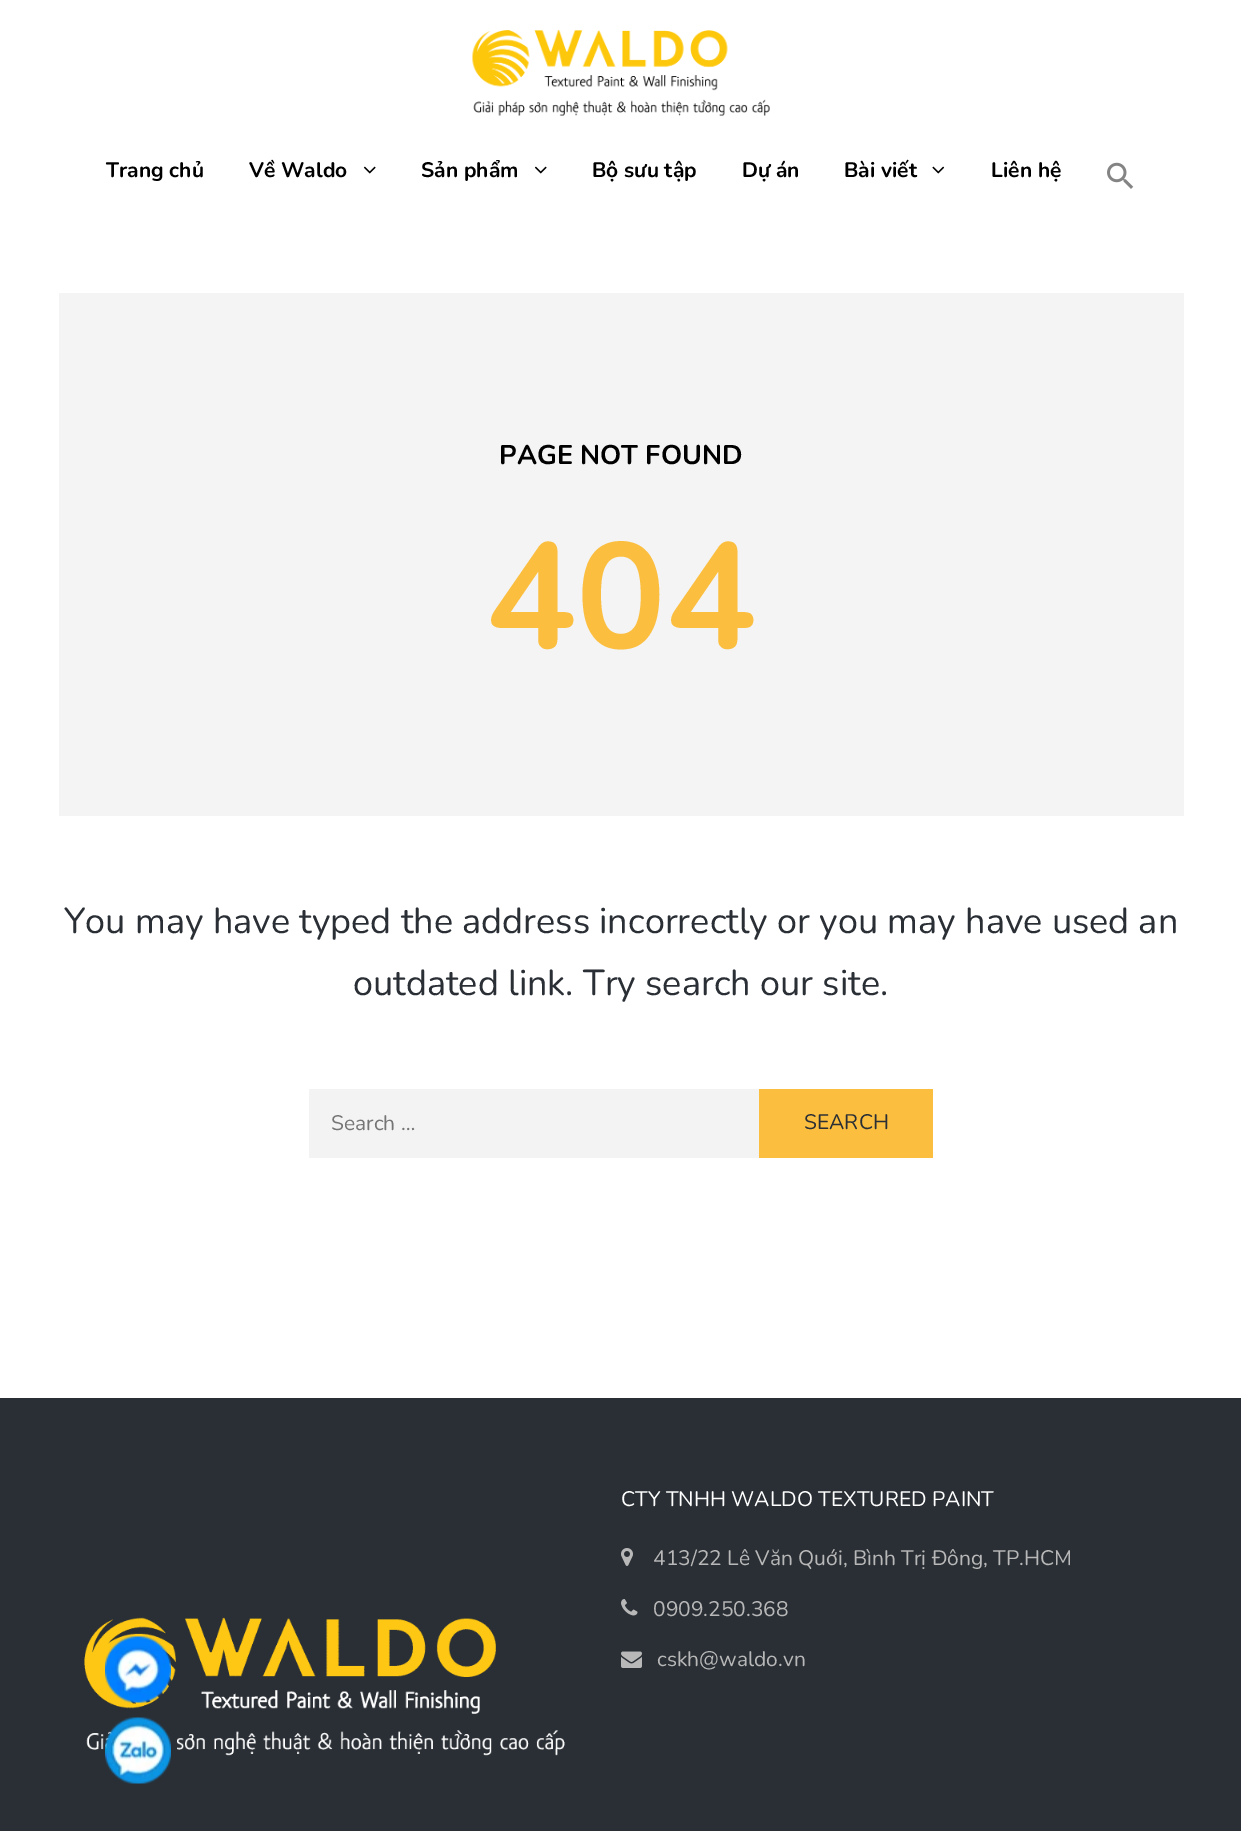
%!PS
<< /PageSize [1241 1831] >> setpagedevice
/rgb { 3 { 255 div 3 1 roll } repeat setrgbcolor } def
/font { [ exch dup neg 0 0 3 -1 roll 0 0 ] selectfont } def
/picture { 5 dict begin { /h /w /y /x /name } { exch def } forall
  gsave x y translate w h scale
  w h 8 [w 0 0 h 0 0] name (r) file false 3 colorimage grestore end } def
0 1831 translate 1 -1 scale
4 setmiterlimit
255 255 255 rgb
0 0 1241 1831 rectfill
(img/1.rgb) 472 30 298 86 picture
(img/2.rgb) 363 166 13 8 picture
(img/2.rgb) 534 166 13 8 picture
(img/3.rgb) 932 166 13 8 picture
(img/4.rgb) 1107 162 27 27 picture
[
  [59 293 1125 523 244 244 244]
  [309 1089 450 69 243 243 243]
  [759 1089 174 69 251 190 63]
  [0 1398 1241 433 42 47 53]
] { aload pop rgb rectfill } forall
(img/5.rgb) 621 1548 12 18 picture
(img/6.rgb) 621 1599 17 17 picture
(img/7.rgb) 621 1651 21 17 picture
(img/8.rgb) 84 1617 481 139 picture
(img/9.rgb) 105 1636 66 67 picture
(img/10.rgb) 105 1717 66 67 picture
/Nunito-Bold 21 font
0 0 0 rgb
[
  [(Trang chủ) 106 177]
  [(Về Waldo) 249 177]
  [(Sản phẩm) 421 177]
  [(Bộ sưu tập) 592 177]
  [(Dự án) 742 177]
  [(Bài viết) 844 177]
  [(Liên hệ) 991 177]
] { aload pop moveto show } forall
/Nunito-Bold 27 font
499 464 moveto (PAGE NOT FOUND) show
/Nunito-Bold 150 font
251 190 63 rgb
486 648 moveto (404) show
/Nunito-Regular 36 font
42 47 53 rgb
64 933 moveto (You may have typed the address incorrectly or you may have used an) show
353 995 moveto (outdated link. Try search our site.) show
/Nunito-Regular 21 font
117 117 117 rgb
331 1130 moveto (Search …) show
42 47 53 rgb
804 1129 moveto (SEARCH) show
255 255 255 rgb
621 1506 moveto (CTY TNHH WALDO TEXTURED PAINT) show
184 184 184 rgb
[
  [(413/22 Lê Văn Quới, Bình Trị Đông, TP.HCM) 653 1565]
  [(0909.250.368) 653 1616]
  [(cskh@waldo.vn) 657 1666]
] { aload pop moveto show } forall
showpage
